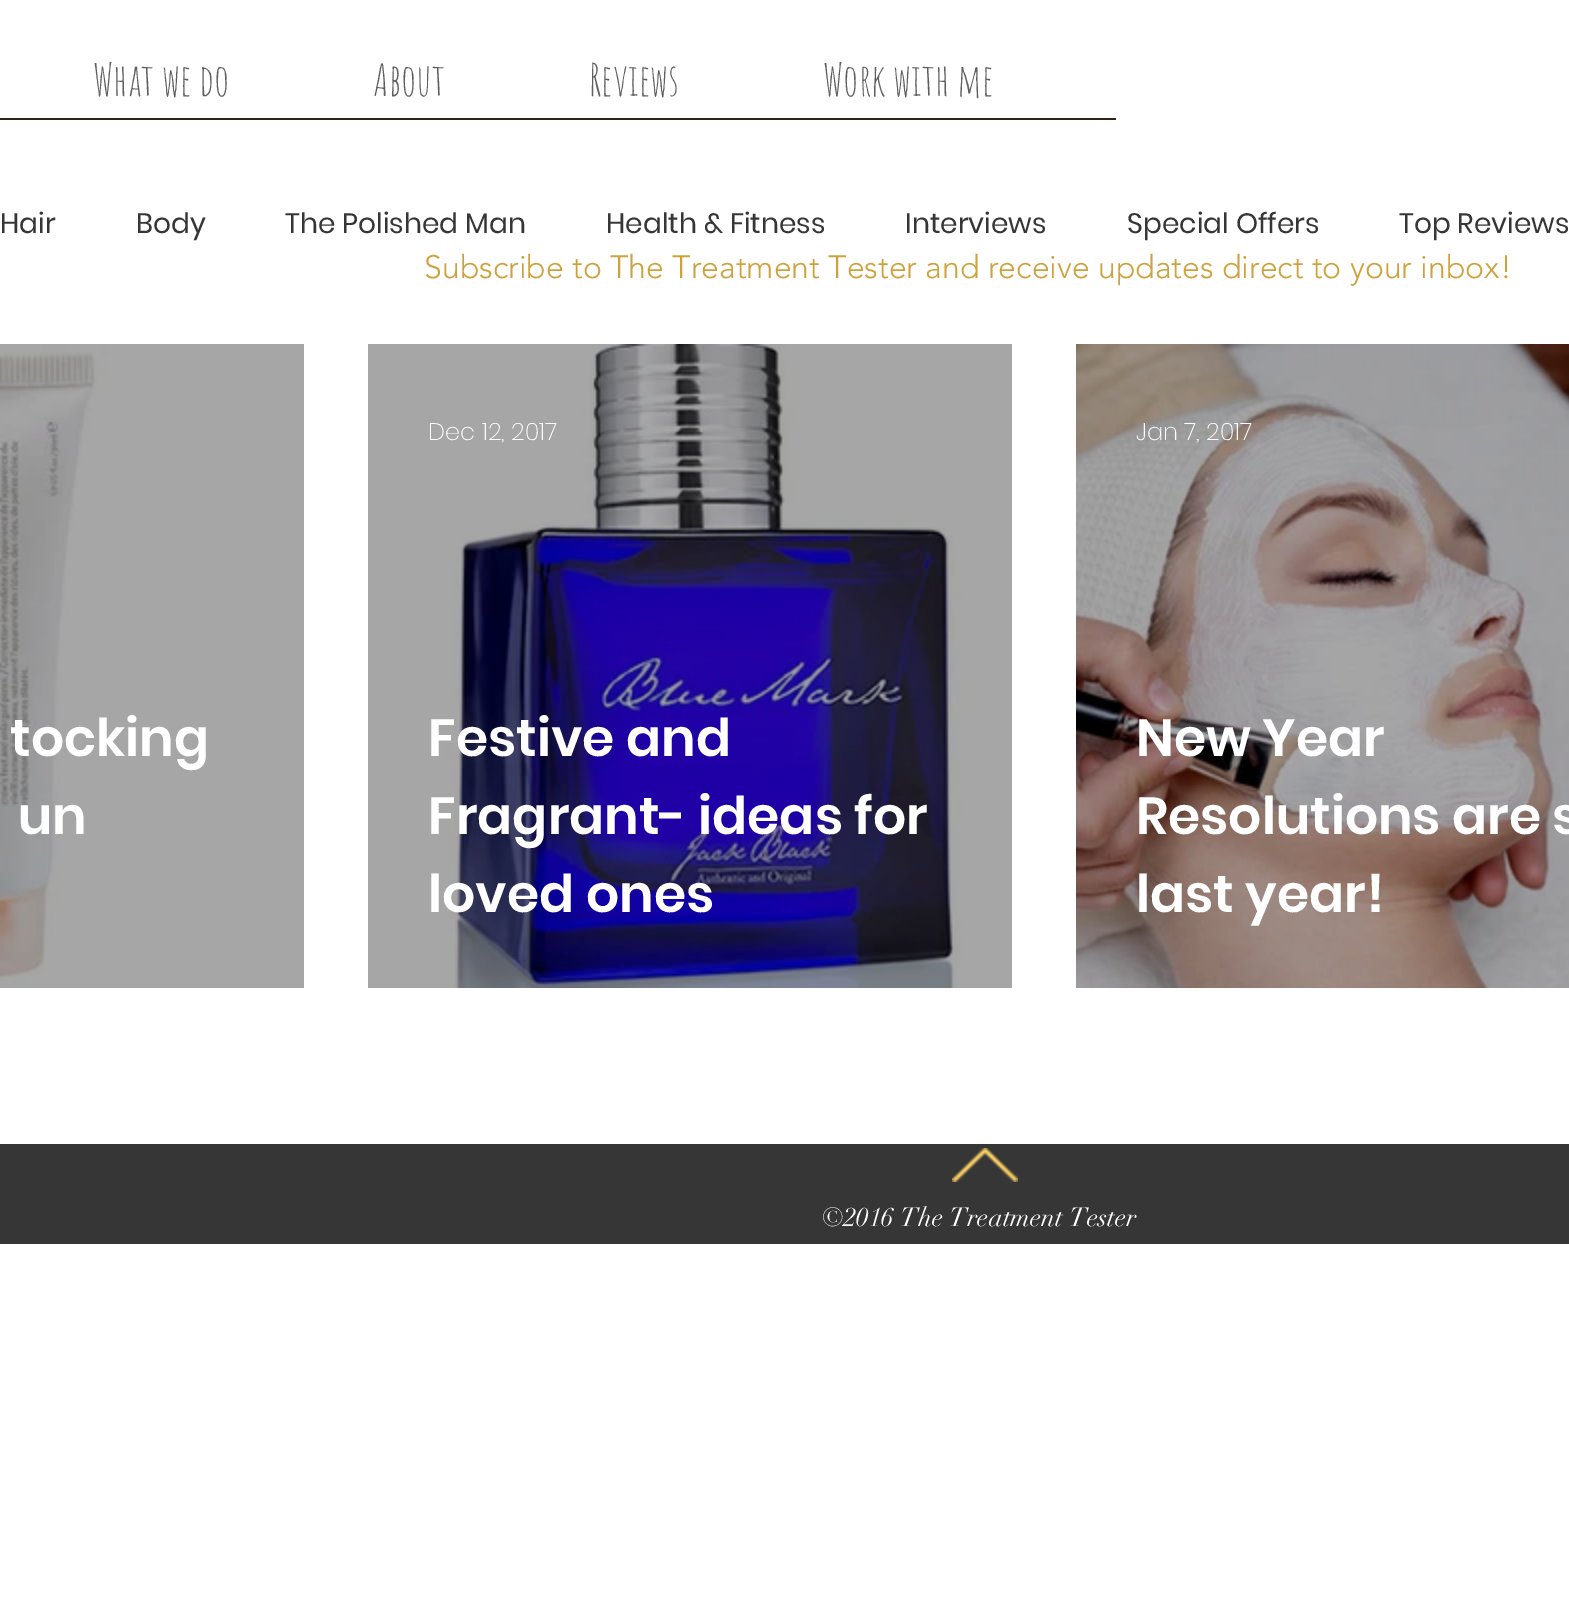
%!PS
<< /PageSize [1569 1613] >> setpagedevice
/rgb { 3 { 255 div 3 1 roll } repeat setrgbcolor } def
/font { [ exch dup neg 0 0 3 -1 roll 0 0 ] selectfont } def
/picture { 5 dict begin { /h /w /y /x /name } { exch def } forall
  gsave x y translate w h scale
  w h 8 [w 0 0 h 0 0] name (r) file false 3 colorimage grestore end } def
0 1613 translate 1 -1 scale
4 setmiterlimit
255 255 255 rgb
0 0 1569 1613 rectfill
166 166 166 rgb
156 344 148 644 rectfill
52 34 22 rgb
0 118 1116 2 rectfill
(img/1.rgb) 0 344 156 644 picture
(img/2.rgb) 368 344 644 644 picture
(img/3.rgb) 1076 344 493 644 picture
54 54 54 rgb
0 1144 1569 100 rectfill
(img/4.rgb) 952 1148 66 34 picture
/AmaticSC-Regular 44 font
96 94 94 rgb
[
  [(What we do) 93 96]
  [(About) 373 96]
  [(Reviews) 589 96]
  [(Work with me) 823 96]
] { aload pop moveto show } forall
/Poppins-Regular 28 font
54 54 54 rgb
[
  [(Hair) 0 233]
  [(Body) 136 233]
  [(The Polished Man) 285 233]
  [(Health & Fitness) 606 233]
  [(Interviews) 905 233]
  [(Special Offers) 1127 233]
  [(Top Reviews) 1399 233]
] { aload pop moveto show } forall
/Poppins-SemiBold 52 font
255 255 255 rgb
10 756 moveto (tocking) show
18 834 moveto (un) show
/Poppins-ExtraLight 24 font
428 440 moveto (Dec 12, 2017) show
/Poppins-SemiBold 52 font
[
  [(Festive and) 428 756]
  [(Fragrant- ideas for) 428 834]
  [(loved ones) 428 912]
] { aload pop moveto show } forall
/Poppins-ExtraLight 24 font
1136 440 moveto (Jan 7, 2017) show
/Poppins-SemiBold 52 font
[
  [(New Year) 1136 756]
  [(Resolutions are s) 1136 834]
  [(last year!) 1136 912]
] { aload pop moveto show } forall
/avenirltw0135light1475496-Light 32 font
207 161 60 rgb
424 278 moveto (Subscribe to The Treatment Tester and receive updates direct to your inbox!) show
/didot-Regular 26 font
255 255 255 rgb
822 1226 moveto (©2016 The Treatment Tester) show
showpage
